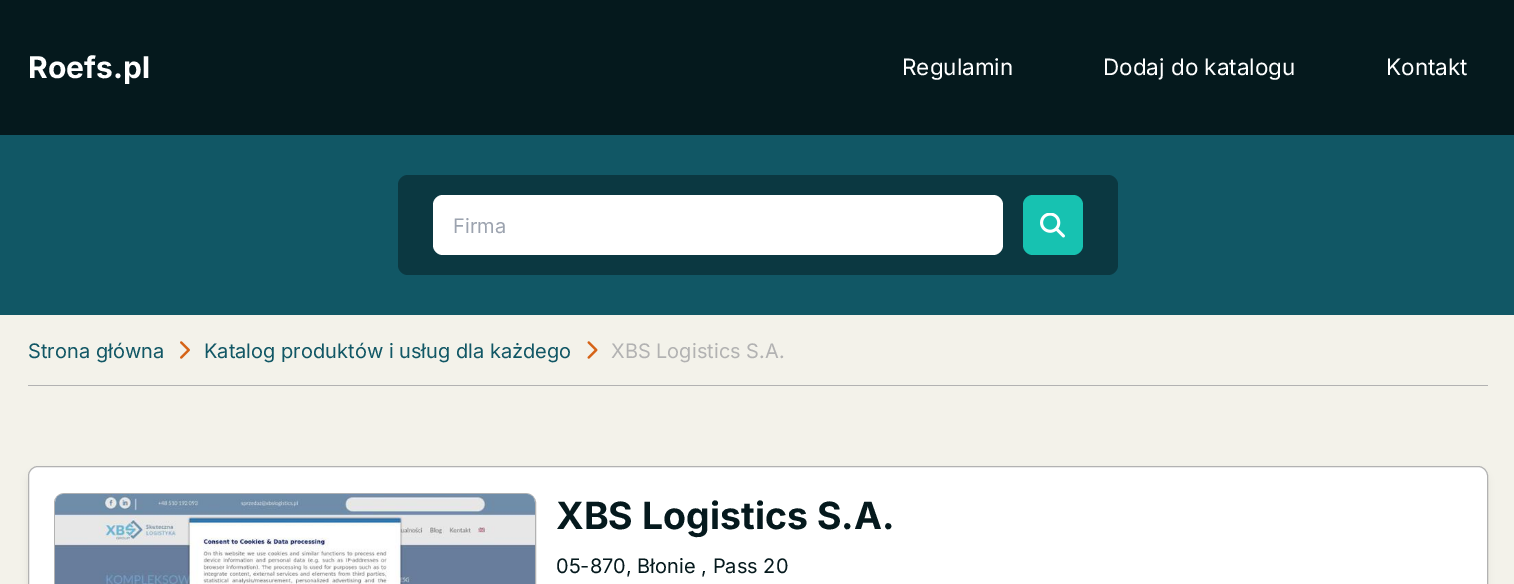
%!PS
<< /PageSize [1514 584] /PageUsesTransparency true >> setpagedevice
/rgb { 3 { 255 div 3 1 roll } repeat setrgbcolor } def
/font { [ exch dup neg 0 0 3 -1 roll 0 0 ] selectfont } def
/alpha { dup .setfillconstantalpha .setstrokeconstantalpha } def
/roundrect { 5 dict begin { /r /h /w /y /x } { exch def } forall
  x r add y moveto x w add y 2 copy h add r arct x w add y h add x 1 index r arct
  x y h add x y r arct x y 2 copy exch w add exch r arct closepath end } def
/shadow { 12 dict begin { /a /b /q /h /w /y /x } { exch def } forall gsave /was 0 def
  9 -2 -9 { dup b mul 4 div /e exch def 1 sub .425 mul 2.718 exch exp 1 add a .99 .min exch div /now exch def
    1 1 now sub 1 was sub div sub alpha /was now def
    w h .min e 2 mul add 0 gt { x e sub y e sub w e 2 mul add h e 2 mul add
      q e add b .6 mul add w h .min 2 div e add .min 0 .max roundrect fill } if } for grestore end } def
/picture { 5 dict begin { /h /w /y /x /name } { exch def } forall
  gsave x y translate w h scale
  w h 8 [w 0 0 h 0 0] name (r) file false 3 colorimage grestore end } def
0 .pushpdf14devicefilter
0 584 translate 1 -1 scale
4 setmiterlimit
243 242 234 rgb
0 0 1514 584 rectfill
5 25 29 rgb
0 0 1514 135 rectfill
17 87 101 rgb
0 135 1514 180 rectfill
11 56 65 rgb
398 175 720 100 10 roundrect fill
255 255 255 rgb
433 195 570 60 10 roundrect fill
23 194 177 rgb
1023 195 60 60 10 roundrect fill
(img/1.rgb) 1040 213 25 25 picture
178 178 178 rgb
28 385 1460 1 rectfill
(img/2.rgb) 180 341 10 18 picture
(img/3.rgb) 587 341 11 18 picture
0 0 0 rgb
29 473 1457 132 9 4 0.1 shadow
255 255 255 rgb
28.5 466.5 1459 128 9.5 roundrect gsave fill grestore
178 178 178 rgb
stroke
54.5 493.5 481 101 9.5 roundrect stroke
(img/4.rgb) 55 493 480 91 picture
/Inter-Bold 30 font
255 255 255 rgb
28 78 moveto (Roefs.pl) show
/Inter-Regular 22.5 font
[
  [(Regulamin) 902 75]
  [(Dodaj do katalogu) 1103 75]
  [(Kontakt) 1386 75]
] { aload pop moveto show } forall
/Inter-Regular 20 font
156 163 175 rgb
453 233 moveto (Firma) show
17 87 101 rgb
28 358 moveto (Strona główna) show
204 358 moveto (Katalog produktów i usług dla każdego) show
178 178 178 rgb
611 358 moveto (XBS Logistics S.A.) show
/Inter-Bold 37.5 font
5 25 29 rgb
556 529 moveto (XBS Logistics S.A.) show
/Inter-Regular 20 font
556 573 moveto (05-870, Błonie , Pass 20) show
.poppdf14devicefilter showpage
